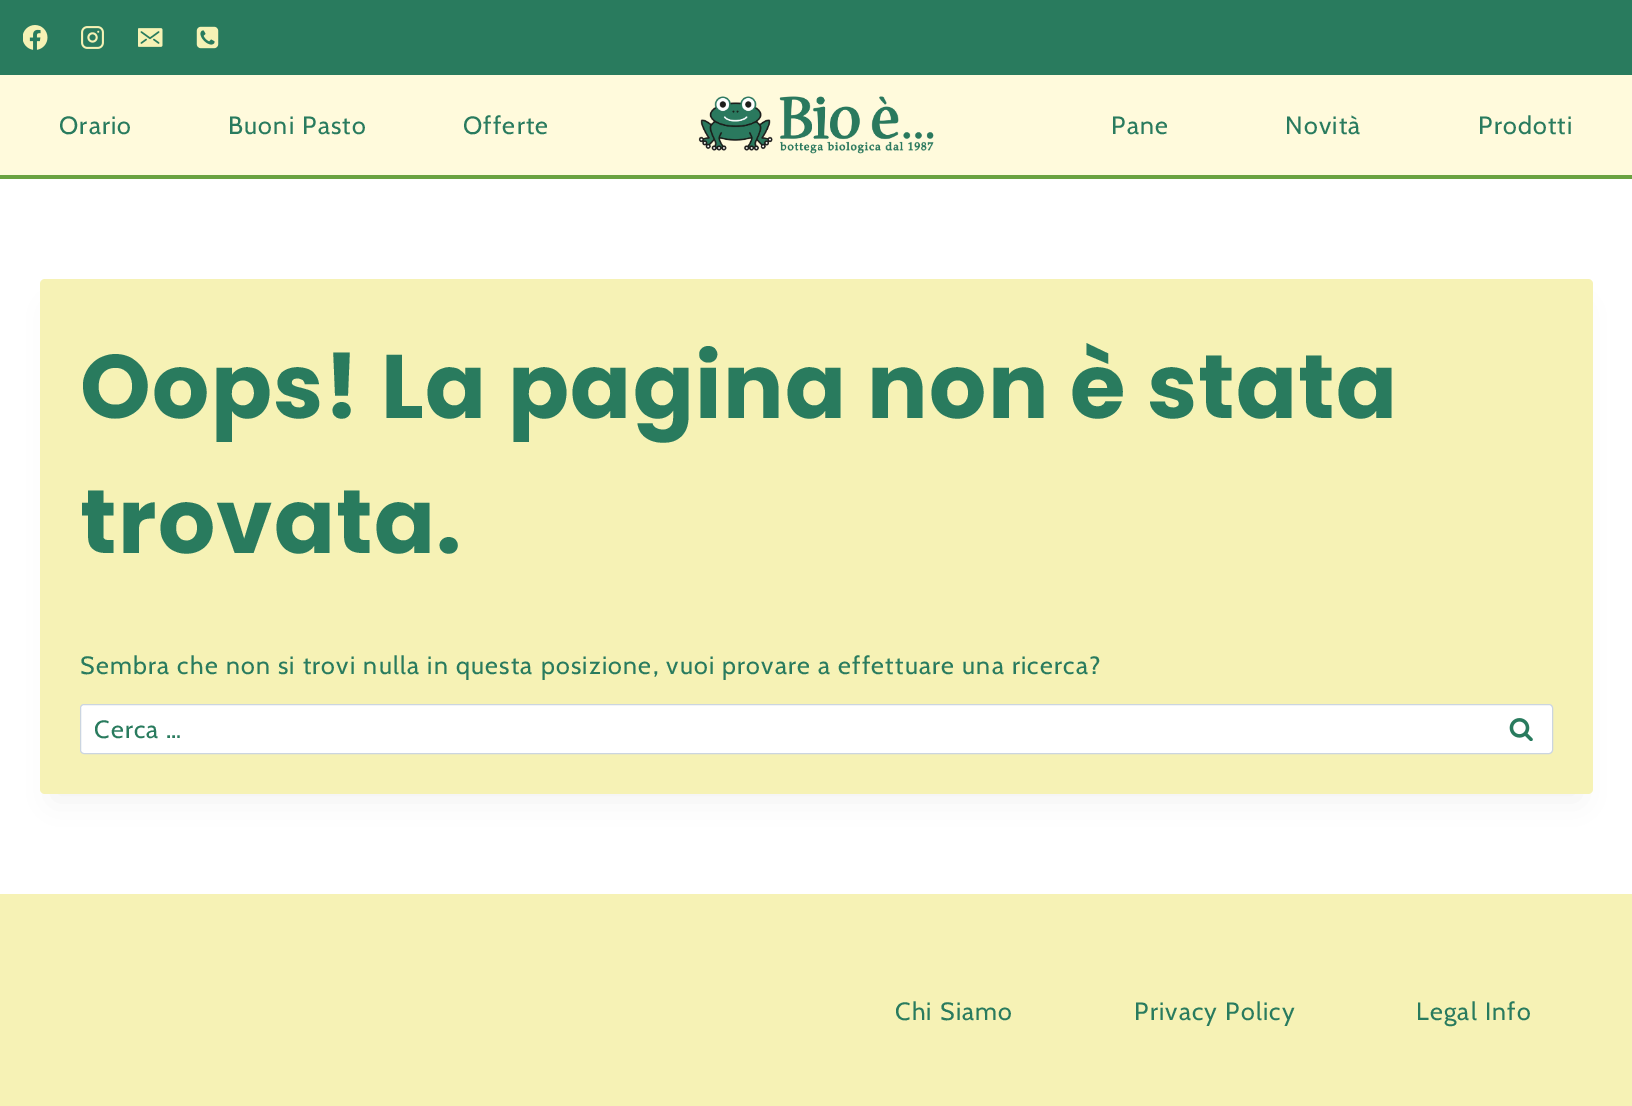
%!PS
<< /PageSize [1632 1106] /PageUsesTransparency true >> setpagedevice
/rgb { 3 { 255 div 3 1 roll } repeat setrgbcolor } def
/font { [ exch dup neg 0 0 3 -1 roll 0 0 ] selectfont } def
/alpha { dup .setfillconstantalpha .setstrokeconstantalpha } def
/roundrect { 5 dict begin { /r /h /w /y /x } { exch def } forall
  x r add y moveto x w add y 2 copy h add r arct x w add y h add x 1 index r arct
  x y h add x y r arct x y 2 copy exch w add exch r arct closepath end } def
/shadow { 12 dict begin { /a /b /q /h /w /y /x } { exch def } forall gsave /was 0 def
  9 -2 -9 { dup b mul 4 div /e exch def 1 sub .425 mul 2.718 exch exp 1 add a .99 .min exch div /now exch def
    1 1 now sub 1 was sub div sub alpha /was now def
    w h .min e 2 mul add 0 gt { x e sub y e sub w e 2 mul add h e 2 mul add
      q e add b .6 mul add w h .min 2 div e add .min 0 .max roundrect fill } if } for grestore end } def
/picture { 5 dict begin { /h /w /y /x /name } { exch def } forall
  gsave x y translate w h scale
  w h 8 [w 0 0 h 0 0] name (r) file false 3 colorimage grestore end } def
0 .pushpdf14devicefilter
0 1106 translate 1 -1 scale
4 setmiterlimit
255 255 255 rgb
0 0 1632 1106 rectfill
41 123 94 rgb
0 0 1632 75 rectfill
(img/1.rgb) 23 25 25 25 picture
(img/2.rgb) 81 26 23 23 picture
(img/3.rgb) 138 28 25 19 picture
(img/4.rgb) 196 26 23 23 picture
255 250 220 rgb
0 75 1632 100 rectfill
106 162 65 rgb
0 175 1632 4 rectfill
(img/5.rgb) 698 96 236 58 picture
0 0 0 rgb
53 310 1527 490 0 15.5 0.05 shadow
246 242 181 rgb
40 279 1553 515 5 roundrect fill
255 255 255 rgb
80.5 704.5 1472 49 3.5 roundrect gsave fill grestore
203 213 224 rgb
stroke
(img/6.rgb) 1509 718 24 23 picture
246 242 181 rgb
0 894 1632 212 rectfill
/Cabin-Regular 25 font
41 123 94 rgb
59 134 moveto 1.23 0 (Orario) ashow
228 134 moveto 1.23 0 (Buoni Pasto) ashow
463 134 moveto 1.23 0 (Offerte) ashow
1111 134 moveto 1.23 0 (Pane) ashow
1285 134 moveto 1.23 0 (Novità) ashow
1478 134 moveto 1.23 0 (Prodotti) ashow
/Poppins-Bold 90 font
80 418 moveto 1.23 0 (Oops! La pagina non è stata) ashow
80 553 moveto 1.23 0 (trovata.) ashow
/Cabin-Regular 25 font
80 674 moveto 1.23 0 (Sembra che non si trovi nulla in questa posizione, vuoi provare a effettuare una ricerca?) ashow
94 738 moveto 1.23 0 (Cerca …) ashow
895 1020 moveto 1.23 0 (Chi Siamo) ashow
1134 1020 moveto 1.23 0 (Privacy Policy) ashow
1416 1020 moveto 1.23 0 (Legal Info) ashow
.poppdf14devicefilter showpage
